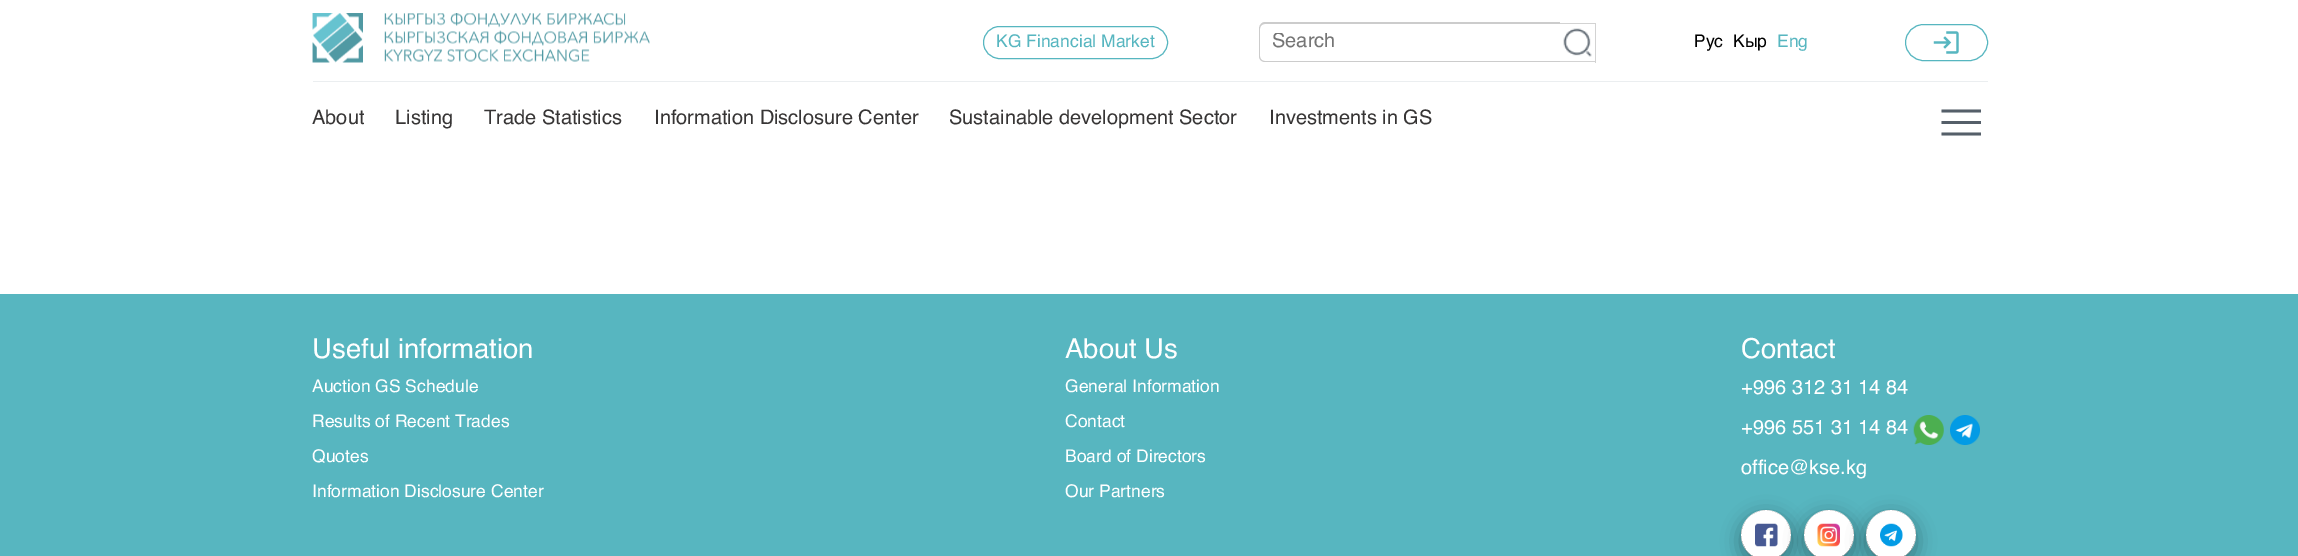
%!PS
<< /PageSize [2298 556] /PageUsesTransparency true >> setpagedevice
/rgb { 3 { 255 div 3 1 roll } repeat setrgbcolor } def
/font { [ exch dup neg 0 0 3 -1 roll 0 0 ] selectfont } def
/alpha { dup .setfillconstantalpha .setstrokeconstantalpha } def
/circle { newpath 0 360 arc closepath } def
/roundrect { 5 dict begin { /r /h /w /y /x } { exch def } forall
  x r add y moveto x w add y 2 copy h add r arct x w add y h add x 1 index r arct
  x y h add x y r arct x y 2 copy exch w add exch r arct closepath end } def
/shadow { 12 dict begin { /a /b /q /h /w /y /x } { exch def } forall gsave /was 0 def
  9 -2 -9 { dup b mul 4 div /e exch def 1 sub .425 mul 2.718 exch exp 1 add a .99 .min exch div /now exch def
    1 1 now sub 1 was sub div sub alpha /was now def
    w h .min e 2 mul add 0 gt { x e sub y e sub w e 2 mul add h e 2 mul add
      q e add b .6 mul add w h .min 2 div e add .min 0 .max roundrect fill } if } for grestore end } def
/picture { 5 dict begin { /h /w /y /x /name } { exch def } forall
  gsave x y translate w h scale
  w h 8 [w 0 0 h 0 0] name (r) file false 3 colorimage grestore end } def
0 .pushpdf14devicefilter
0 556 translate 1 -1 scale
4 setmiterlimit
255 255 255 rgb
0 0 2298 556 rectfill
235 238 240 rgb
313 81 1675 1 rectfill
(img/1.rgb) 312 13 338 50 picture
87 182 192 rgb
983.5 26.5 184 32 16 roundrect stroke
204 204 204 rgb
1265 22 moveto 1560 22 lineto 1560 62 lineto 1265 62 lineto 1262 62 1259 60 1259 56 curveto 1259 29 lineto 1259 25 1262 22 1265 22 curveto closepath 1265 24 moveto 1560 24 lineto 1560 61 lineto 1265 61 lineto 1262 61 1260 59 1260 56 curveto 1260 29 lineto 1260 26 1262 24 1265 24 curveto closepath eofill
(img/2.rgb) 1563 28 29 29 picture
[
  [1560 23 36 1 211 211 211]
  [1595 23 1 40 211 211 211]
  [1560 61 36 1 211 211 211]
] { aload pop rgb rectfill } forall
87 182 192 rgb
1905.5 24.5 82 36 18 roundrect stroke
(img/3.rgb) 1933 31 26 23 picture
85 95 105 rgb
1941.5 135.5 moveto 1941.5 132.5 lineto 1981 132.5 lineto 1981 135.5 lineto closepath 1941.5 124 moveto 1941.5 121 lineto 1981 121 lineto 1981 124 lineto closepath 1941.5 112.5 moveto 1941.5 109.5 lineto 1981 109.5 lineto 1981 112.5 lineto closepath fill
87 182 192 rgb
0 294 2298 262 rectfill
(img/4.rgb) 1913 415 31 30 picture
(img/5.rgb) 1950 415 30 30 picture
255 255 255 rgb
1766 535 25 circle fill
gsave
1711 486 moveto 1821 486 lineto 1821 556 lineto 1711 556 lineto closepath 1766 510 moveto 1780 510 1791 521 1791 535 curveto 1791 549 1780 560 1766 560 curveto 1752 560 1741 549 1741 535 curveto 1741 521 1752 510 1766 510 curveto closepath eoclip newpath
0 0 0 rgb
1741 516 50 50 25 9.5 0.35 shadow
grestore
(img/6.rgb) 1755 523 23 24 picture
1829 535 25 circle fill
gsave
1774 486 moveto 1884 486 lineto 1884 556 lineto 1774 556 lineto closepath 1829 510 moveto 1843 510 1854 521 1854 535 curveto 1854 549 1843 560 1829 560 curveto 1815 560 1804 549 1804 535 curveto 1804 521 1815 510 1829 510 curveto closepath eoclip newpath
0 0 0 rgb
1804 516 50 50 25 9.5 0.35 shadow
grestore
(img/7.rgb) 1817 523 23 24 picture
1891 535 25 circle fill
gsave
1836 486 moveto 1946 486 lineto 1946 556 lineto 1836 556 lineto closepath 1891 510 moveto 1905 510 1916 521 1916 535 curveto 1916 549 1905 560 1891 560 curveto 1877 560 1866 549 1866 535 curveto 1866 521 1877 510 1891 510 curveto closepath eoclip newpath
0 0 0 rgb
1866 516 50 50 25 9.5 0.35 shadow
grestore
(img/8.rgb) 1880 523 23 24 picture
/Helvetica-Regular 17.5 font
87 182 192 rgb
996 47 moveto (KG Financial Market) show
gsave
1273 33 287 20 rectclip
/Helvetica-Regular 20 font
117 117 117 rgb
1272 47 moveto (Search) show
grestore
0 0 0 rgb
1694 47 moveto (Рус) show
1733 47 moveto (Кыр) show
87 182 192 rgb
1777 47 moveto (Eng) show
/Helvetica-Regular 20 font
55 53 53 rgb
[
  [(About) 312 124]
  [(Listing) 395 124]
  [(Trade Statistics) 484 124]
  [(Information Disclosure Center) 654 124]
  [(Sustainable development Sector) 949 124]
  [(Investments in GS) 1269 124]
] { aload pop moveto show } forall
/Helvetica-Regular 27.5 font
255 255 255 rgb
312 358 moveto (Useful information) show
/Helvetica-Regular 17.5 font
[
  [(Auction GS Schedule) 312 392]
  [(Results of Recent Trades) 312 427]
  [(Quotes) 312 462]
  [(Information Disclosure Center) 312 497]
] { aload pop moveto show } forall
/Helvetica-Regular 27.5 font
1065 358 moveto (About Us) show
/Helvetica-Regular 17.5 font
[
  [(General Information) 1065 392]
  [(Contact) 1065 427]
  [(Board of Directors) 1065 462]
  [(Our Partners) 1065 497]
] { aload pop moveto show } forall
/Helvetica-Regular 27.5 font
1741 358 moveto (Contact) show
/Helvetica-Regular 20 font
[
  [(+996 312 31 14 84) 1741 394]
  [(+996 551 31 14 84) 1741 434]
  [(office@kse.kg) 1741 474]
] { aload pop moveto show } forall
.poppdf14devicefilter showpage
